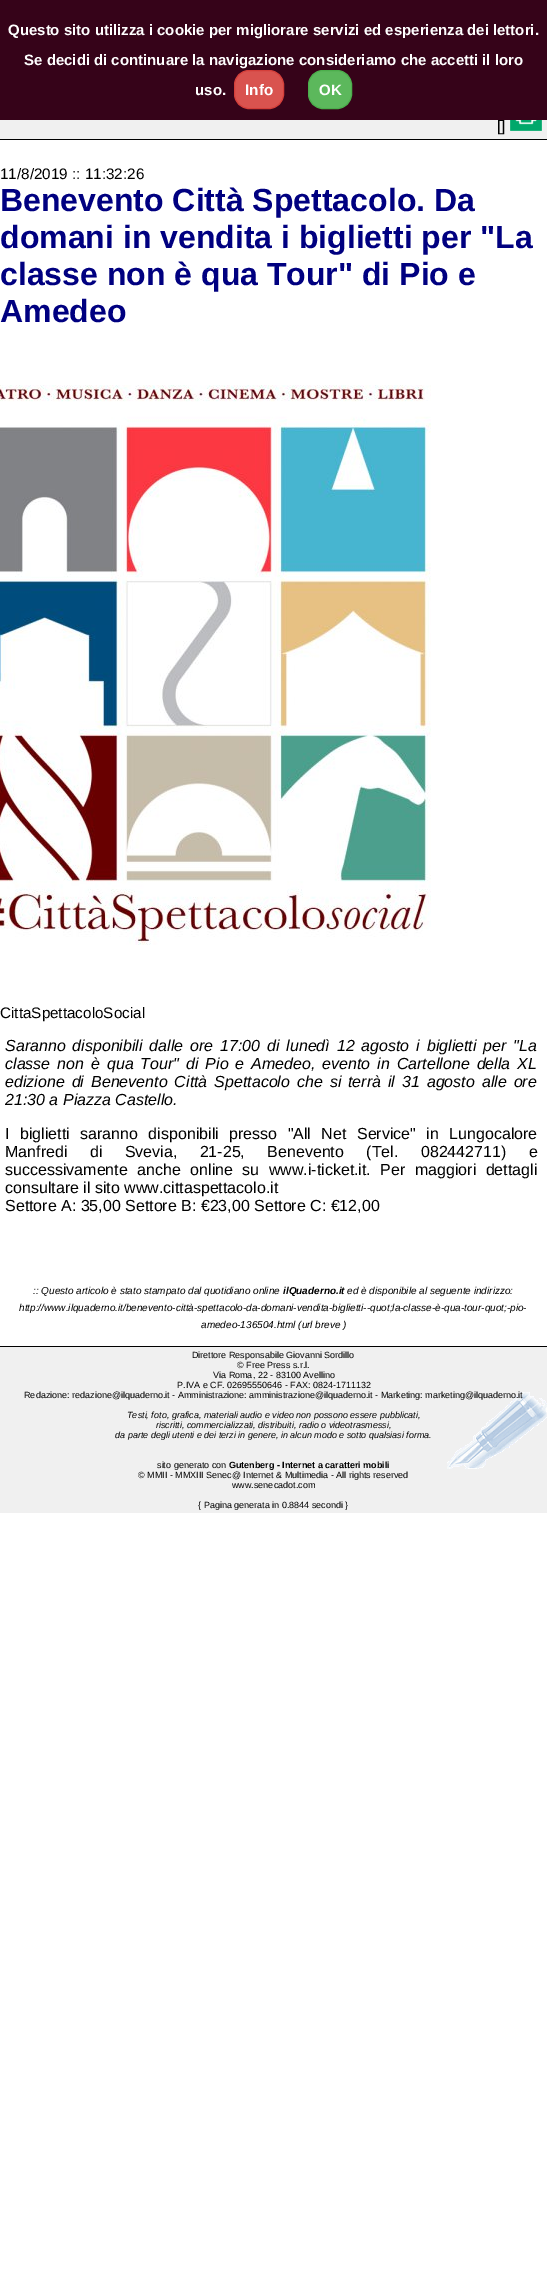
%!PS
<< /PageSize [547 2273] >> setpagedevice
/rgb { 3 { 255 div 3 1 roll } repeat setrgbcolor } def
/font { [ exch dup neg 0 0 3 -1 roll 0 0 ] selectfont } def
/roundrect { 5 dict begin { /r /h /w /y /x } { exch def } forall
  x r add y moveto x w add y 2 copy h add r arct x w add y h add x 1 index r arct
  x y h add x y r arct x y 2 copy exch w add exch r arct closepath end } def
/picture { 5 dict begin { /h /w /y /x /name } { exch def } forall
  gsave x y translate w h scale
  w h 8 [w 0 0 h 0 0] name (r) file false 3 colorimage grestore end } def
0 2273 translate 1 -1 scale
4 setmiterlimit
255 255 255 rgb
0 0 547 2273 rectfill
240 240 240 rgb
0 120 547 19 rectfill
0 0 0 rgb
0 139 547 1 rectfill
(img/1.rgb) 510 120 32 11 picture
(img/2.rgb) 0 385 431 560 picture
240 240 240 rgb
0 1347 547 166 rectfill
(img/3.rgb) 447 1392 100 77 picture
0 0 0 rgb
0 1346 547 1 rectfill
/LiberationSans-Regular 15.25 font
497 131 moveto ([]) show
54 3 25 rgb
0 0 547 120 rectfill
92 184 92 rgb
308.5 70.5 43 38 14.5 roundrect gsave fill grestore
76 174 76 rgb
stroke
/LiberationSans-Bold 15 font
255 255 255 rgb
319 95 moveto (OK) show
217 83 79 rgb
234.5 70.5 49 38 14.5 roundrect gsave fill grestore
212 63 58 rgb
stroke
/LiberationSans-Bold 15.25 font
255 255 255 rgb
245 95 moveto (Info) show
/LiberationSans-Bold 15 font
[
  [(uso.) 195 95]
  [(Se decidi di continuare la navigazione consideriamo che accetti il loro) 24 65]
  [(Questo sito utilizza i cookie per migliorare servizi ed esperienza dei lettori.) 8 35]
] { aload pop moveto show } forall
/LiberationSans-Regular 15.25 font
0 0 0 rgb
0 179 moveto (11/8/2019 :: 11:32:26) show
/LiberationSans-Bold 32 font
0 0 128 rgb
[
  [(Benevento Città Spettacolo. Da) 0 211]
  [(domani in vendita i biglietti per "La) 0 248]
  [(classe non è qua Tour" di Pio e) 0 285]
  [(Amedeo) 0 322]
] { aload pop moveto show } forall
/LiberationSans-Regular 15.25 font
0 0 0 rgb
0 1018 moveto (CittaSpettacoloSocial) show
/LiberationSans-Italic 16 font
5 1051 moveto 2.4 0 32 (Saranno disponibili dalle ore 17:00 di lunedì 12 agosto i biglietti per "La) widthshow
5 1069 moveto 2.5 0 32 (classe non è qua Tour" di Pio e Amedeo, evento in Cartellone della XL) widthshow
5 1087 moveto 2.5 0 32 (edizione di Benevento Città Spettacolo che si terrà il 31 agosto alle ore) widthshow
5 1105 moveto (21:30 a Piazza Castello.) show
/LiberationSans-Regular 16 font
5 1139 moveto 6 0 32 (I biglietti saranno disponibili presso "All Net Service" in Lungocalore) widthshow
5 1157 moveto 18 0 32 (Manfredi di Svevia, 21-25, Benevento \(Tel. 082442711\) e) widthshow
5 1175 moveto 5 0 32 (successivamente anche online su www.i-ticket.it. Per maggiori dettagli) widthshow
5 1193 moveto (consultare il sito www.cittaspettacolo.it) show
5 1211 moveto (Settore A: 35,00 Settore B: €23,00 Settore C: €12,00) show
/LiberationSans-Italic 10 font
33 1294 moveto (:: Questo articolo è stato stampato dal quotidiano online) show
/LiberationSans-BoldItalic 10 font
283 1294 moveto (ilQuaderno.it) show
/LiberationSans-Italic 10 font
[
  [(ed è disponibile al seguente indirizzo:) 347 1294]
  [(http://www.ilquaderno.it/benevento-città-spettacolo-da-domani-vendita-biglietti--quot;la-classe-è-qua-tour-quot;-pio-) 19 1311]
  [(amedeo-136504.html \(url breve \)) 201 1328]
] { aload pop moveto show } forall
/LiberationSans-Regular 9 font
[
  [(Direttore Responsabile Giovanni Sordillo) 192 1358]
  [(© Free Press s.r.l.) 237 1368]
  [(Via Roma, 22 - 83100 Avellino) 213 1378]
  [(P.IVA e CF. 02695550646 - FAX: 0824-1711132) 177 1388]
  [(Redazione: redazione@ilquaderno.it - Amministrazione: amministrazione@ilquaderno.it - Marketing: marketing@ilquaderno.it) 24 1398]
] { aload pop moveto show } forall
/LiberationSans-Italic 9 font
[
  [(Testi, foto, grafica, materiali audio e video non possono essere pubblicati,) 127 1418]
  [(riscritti, commercializzati, distribuiti, radio o videotrasmessi,) 156 1428]
  [(da parte degli utenti e dei terzi in genere, in alcun modo e sotto qualsiasi forma.) 115 1438]
] { aload pop moveto show } forall
/LiberationSans-Regular 9 font
157 1468 moveto (sito generato con) show
/LiberationSans-Bold 9 font
229 1468 moveto (Gutenberg - Internet a caratteri mobili) show
/LiberationSans-Regular 9 font
[
  [(© MMII - MMXIII Senec@ Internet & Multimedia - All rights reserved) 138 1478]
  [(www.senecadot.com) 232 1488]
  [({ Pagina generata in 0.8844 secondi }) 198 1508]
] { aload pop moveto show } forall
showpage
